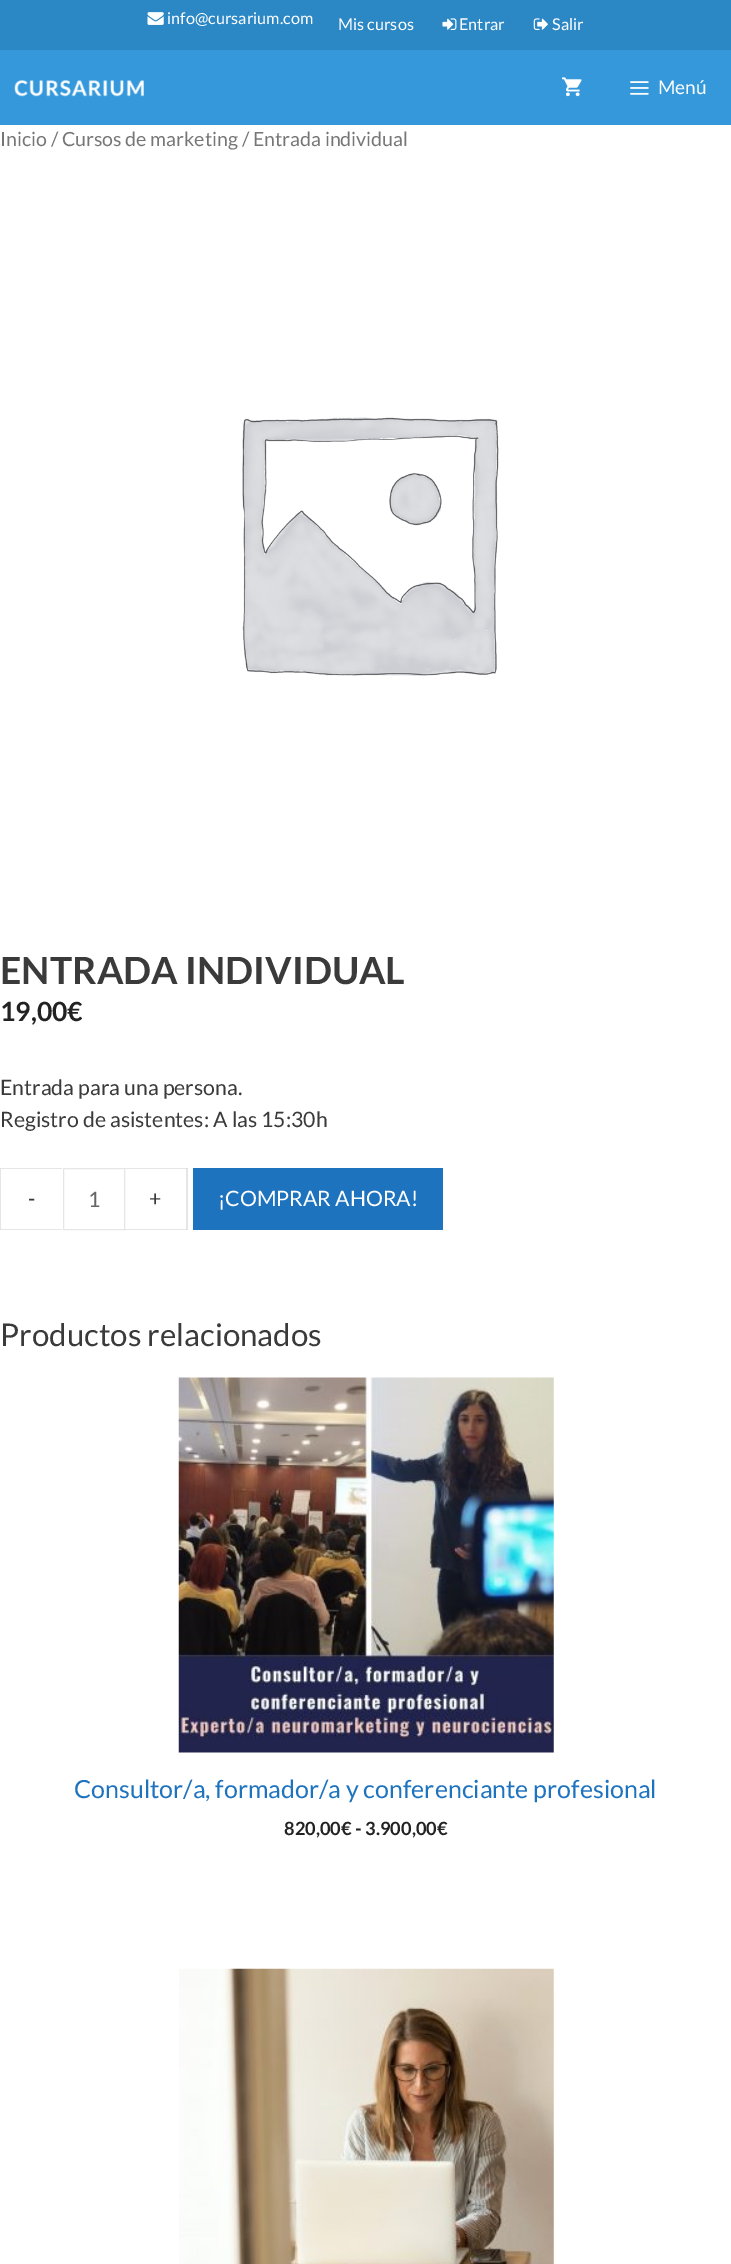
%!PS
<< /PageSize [731 2264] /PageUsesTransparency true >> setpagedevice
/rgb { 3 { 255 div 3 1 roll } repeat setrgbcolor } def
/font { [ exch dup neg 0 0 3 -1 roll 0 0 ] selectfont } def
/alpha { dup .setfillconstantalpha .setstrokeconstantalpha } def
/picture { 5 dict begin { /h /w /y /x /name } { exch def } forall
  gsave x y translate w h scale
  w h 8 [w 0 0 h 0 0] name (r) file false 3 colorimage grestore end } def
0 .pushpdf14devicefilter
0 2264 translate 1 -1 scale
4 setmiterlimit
255 255 255 rgb
0 0 731 2264 rectfill
44 136 197 rgb
0 0 731 50 rectfill
(img/1.rgb) 147 12 17 13 picture
(img/2.rgb) 442 18 15 12 picture
(img/3.rgb) 533 18 15 12 picture
52 152 219 rgb
0 50 731 75 rectfill
(img/4.rgb) 14 79 130 18 picture
(img/5.rgb) 562 77 20 20 picture
(img/6.rgb) 630 81 19 14 picture
(img/7.rgb) 242 417 257 260 picture
230 230 230 rgb
0 1168 moveto 62 1168 lineto 62 1169 lineto 1 1169 lineto closepath 62 1230 moveto 0 1230 lineto 1 1229 lineto 62 1229 lineto closepath fill
0.1 alpha
0 0 0 rgb
0 1230 moveto 0 1168 lineto 1 1169 lineto 1 1229 lineto closepath fill
1 alpha
230 230 230 rgb
63.5 1168.5 61 61 rectstroke
125 1168 moveto 188 1168 lineto 186 1169 lineto 125 1169 lineto closepath fill
0.1 alpha
0 0 0 rgb
188 1168 moveto 188 1230 lineto 186 1229 lineto 186 1169 lineto closepath fill
188 1230 moveto 125 1230 lineto 125 1229 lineto 186 1229 lineto closepath fill
1 alpha
30 115 190 rgb
193 1168 250 62 rectfill
(img/8.rgb) 178 1377 376 376 picture
(img/9.rgb) 179 1968 375 296 picture
/Lato-Regular 16.25 font
255 255 255 rgb
[
  [(info@cursarium.com) 167 24]
  [(Mis cursos) 338 30]
  [(Entrar) 459 30]
  [(Salir) 552 30]
] { aload pop moveto show } forall
/Lato-Regular 19 font
658 94 moveto (Menú) show
/Lato-Regular 19.55 font
118 118 118 rgb
0 146 moveto (Inicio / Cursos de marketing / Entrada individual) show
/Lato-Bold 37.5 font
58 58 58 rgb
0 984 moveto (ENTRADA INDIVIDUAL) show
/Lato-Bold 26.5 font
34 34 34 rgb
0 1021 moveto (19,00€) show
/Lato-Regular 21.25 font
58 58 58 rgb
[
  [(Entrada para una persona.) 0 1095]
  [(Registro de asistentes: A las 15:30h) 0 1127]
  [(-) 28 1206]
] { aload pop moveto show } forall
102 102 102 rgb
88 1207 moveto (1) show
58 58 58 rgb
149 1206 moveto (+) show
255 255 255 rgb
218 1206 moveto (¡COMPRAR AHORA!) show
/Lato-Regular 31.25 font
58 58 58 rgb
0 1346 moveto (Productos relacionados) show
/Lato-Regular 25 font
30 115 190 rgb
74 1798 moveto (Consultor/a, formador/a y conferenciante profesional) show
/Lato-Bold 18.25 font
34 34 34 rgb
284 1835 moveto (820,00€ - 3.900,00€) show
.poppdf14devicefilter showpage
